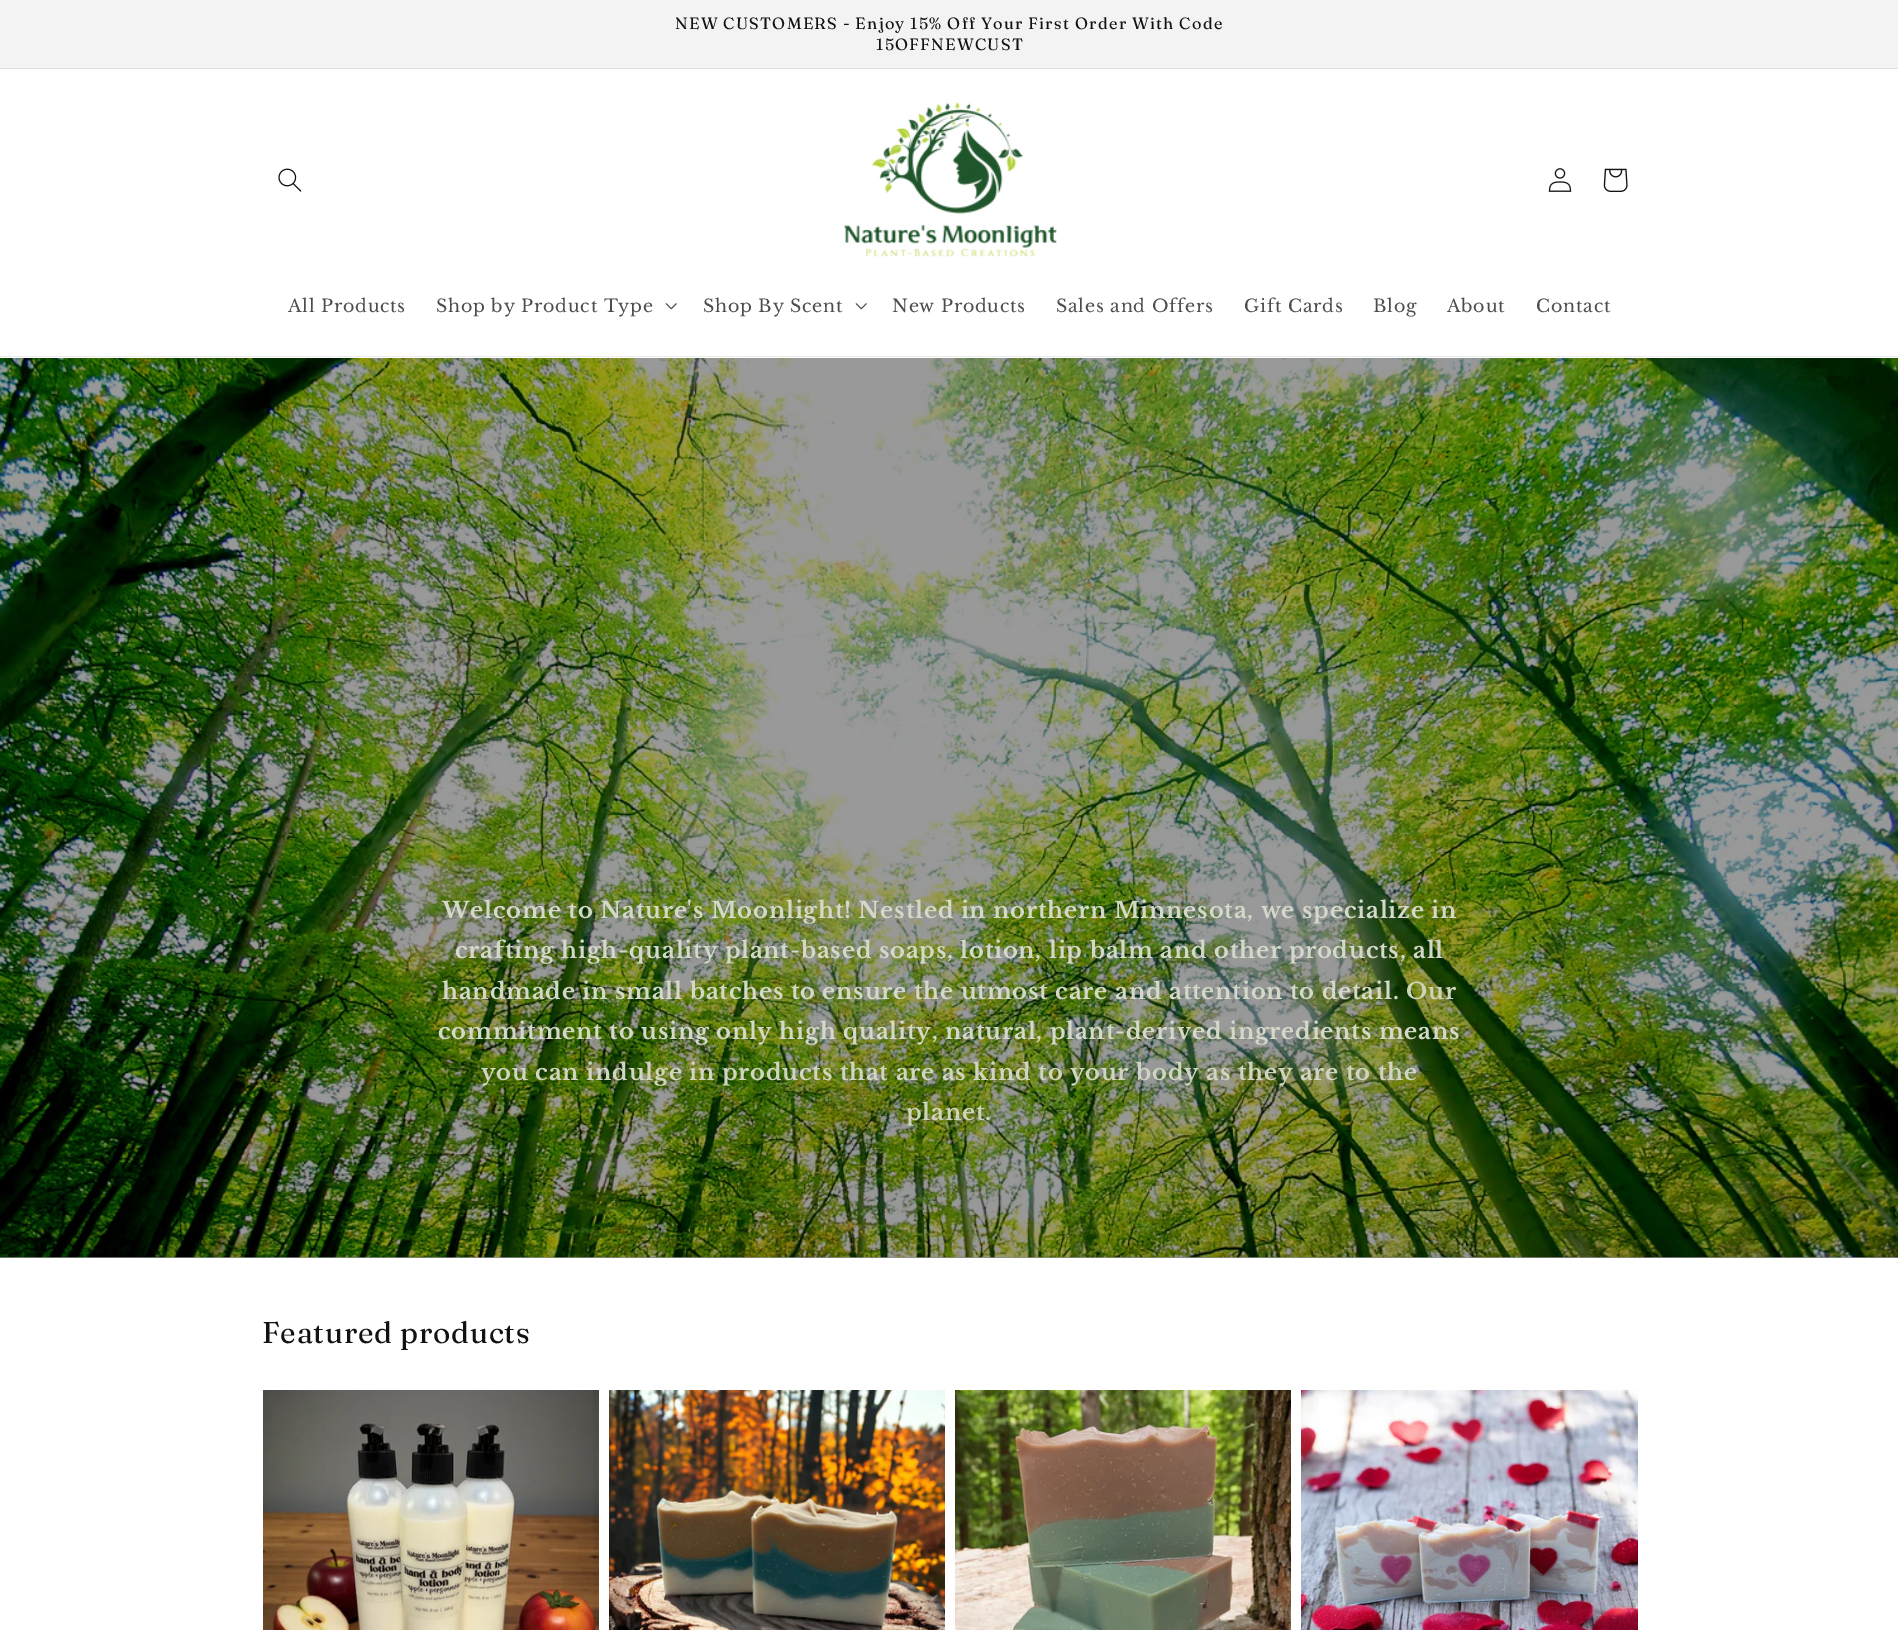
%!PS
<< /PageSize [1898 1630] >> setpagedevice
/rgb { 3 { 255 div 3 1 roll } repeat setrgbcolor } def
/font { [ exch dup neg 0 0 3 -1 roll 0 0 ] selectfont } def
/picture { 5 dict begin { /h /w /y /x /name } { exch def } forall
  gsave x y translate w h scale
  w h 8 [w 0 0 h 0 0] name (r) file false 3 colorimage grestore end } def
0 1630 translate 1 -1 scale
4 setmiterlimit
255 255 255 rgb
0 0 1898 1630 rectfill
[
  [0 0 1898 68 243 243 243]
  [0 68 1898 1 225 225 225]
  [0 356 1898 1 236 236 236]
] { aload pop rgb rectfill } forall
(img/1.rgb) 278 168 24 24 picture
(img/2.rgb) 843 102 214 155 picture
(img/3.rgb) 1548 168 24 24 picture
(img/4.rgb) 1603 168 25 24 picture
(img/5.rgb) 665 303 12 7 picture
(img/5.rgb) 855 303 12 7 picture
139 139 139 rgb
0 1257 1898 1 rectfill
(img/6.rgb) 0 358 1898 900 picture
(img/7.rgb) 263 1390 336 240 picture
(img/8.rgb) 609 1390 336 240 picture
(img/9.rgb) 955 1390 336 240 picture
(img/10.rgb) 1301 1390 337 240 picture
/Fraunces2-Regular 16.25 font
18 18 18 rgb
675 29 moveto -0.25 0 32 1.25 0 (NEW CUSTOMERS - Enjoy 15% Off Your First Order With Code) awidthshow
876 50 moveto 1.25 0 (15OFFNEWCUST) ashow
/LibreBaskerville-Regular 17.5 font
77 77 77 rgb
288 312 moveto 0.75 0 (All Products) ashow
436 312 moveto 0.75 0 (Shop by Product Type) ashow
703 312 moveto 0.75 0 (Shop By Scent) ashow
892 312 moveto 0.75 0 (New Products) ashow
1056 312 moveto 0.75 0 (Sales and Offers) ashow
1244 312 moveto 0.75 0 (Gift Cards) ashow
1373 312 moveto 0.75 0 (Blog) ashow
1447 312 moveto 0.75 0 (About) ashow
1536 312 moveto 0.75 0 (Contact) ashow
/LibreBaskerville-Bold 22.5 font
211 216 200 rgb
442 918 moveto 0.75 0 (Welcome to Nature's Moonlight! Nestled in northern Minnesota, we specialize in) ashow
455 958 moveto 0.75 0 (crafting high-quality plant-based soaps, lotion, lip balm and other products, all) ashow
442 999 moveto 0.75 0 (handmade in small batches to ensure the utmost care and attention to detail.) ashow
206 211 187 rgb
1406 999 moveto 0.75 0 (Our) ashow
211 216 200 rgb
438 1039 moveto 0.75 0 (commitment to using only high quality, natural, plant-derived ingredients means) ashow
207 213 193 rgb
481 1080 moveto 0.75 0 (you can indulge in products that are as kind to your body as they are to the) ashow
206 211 187 rgb
906 1120 moveto 0.75 0 (planet.) ashow
/Fraunces-Regular 30 font
18 18 18 rgb
262 1343 moveto 0.75 0 (Featured products) ashow
showpage
